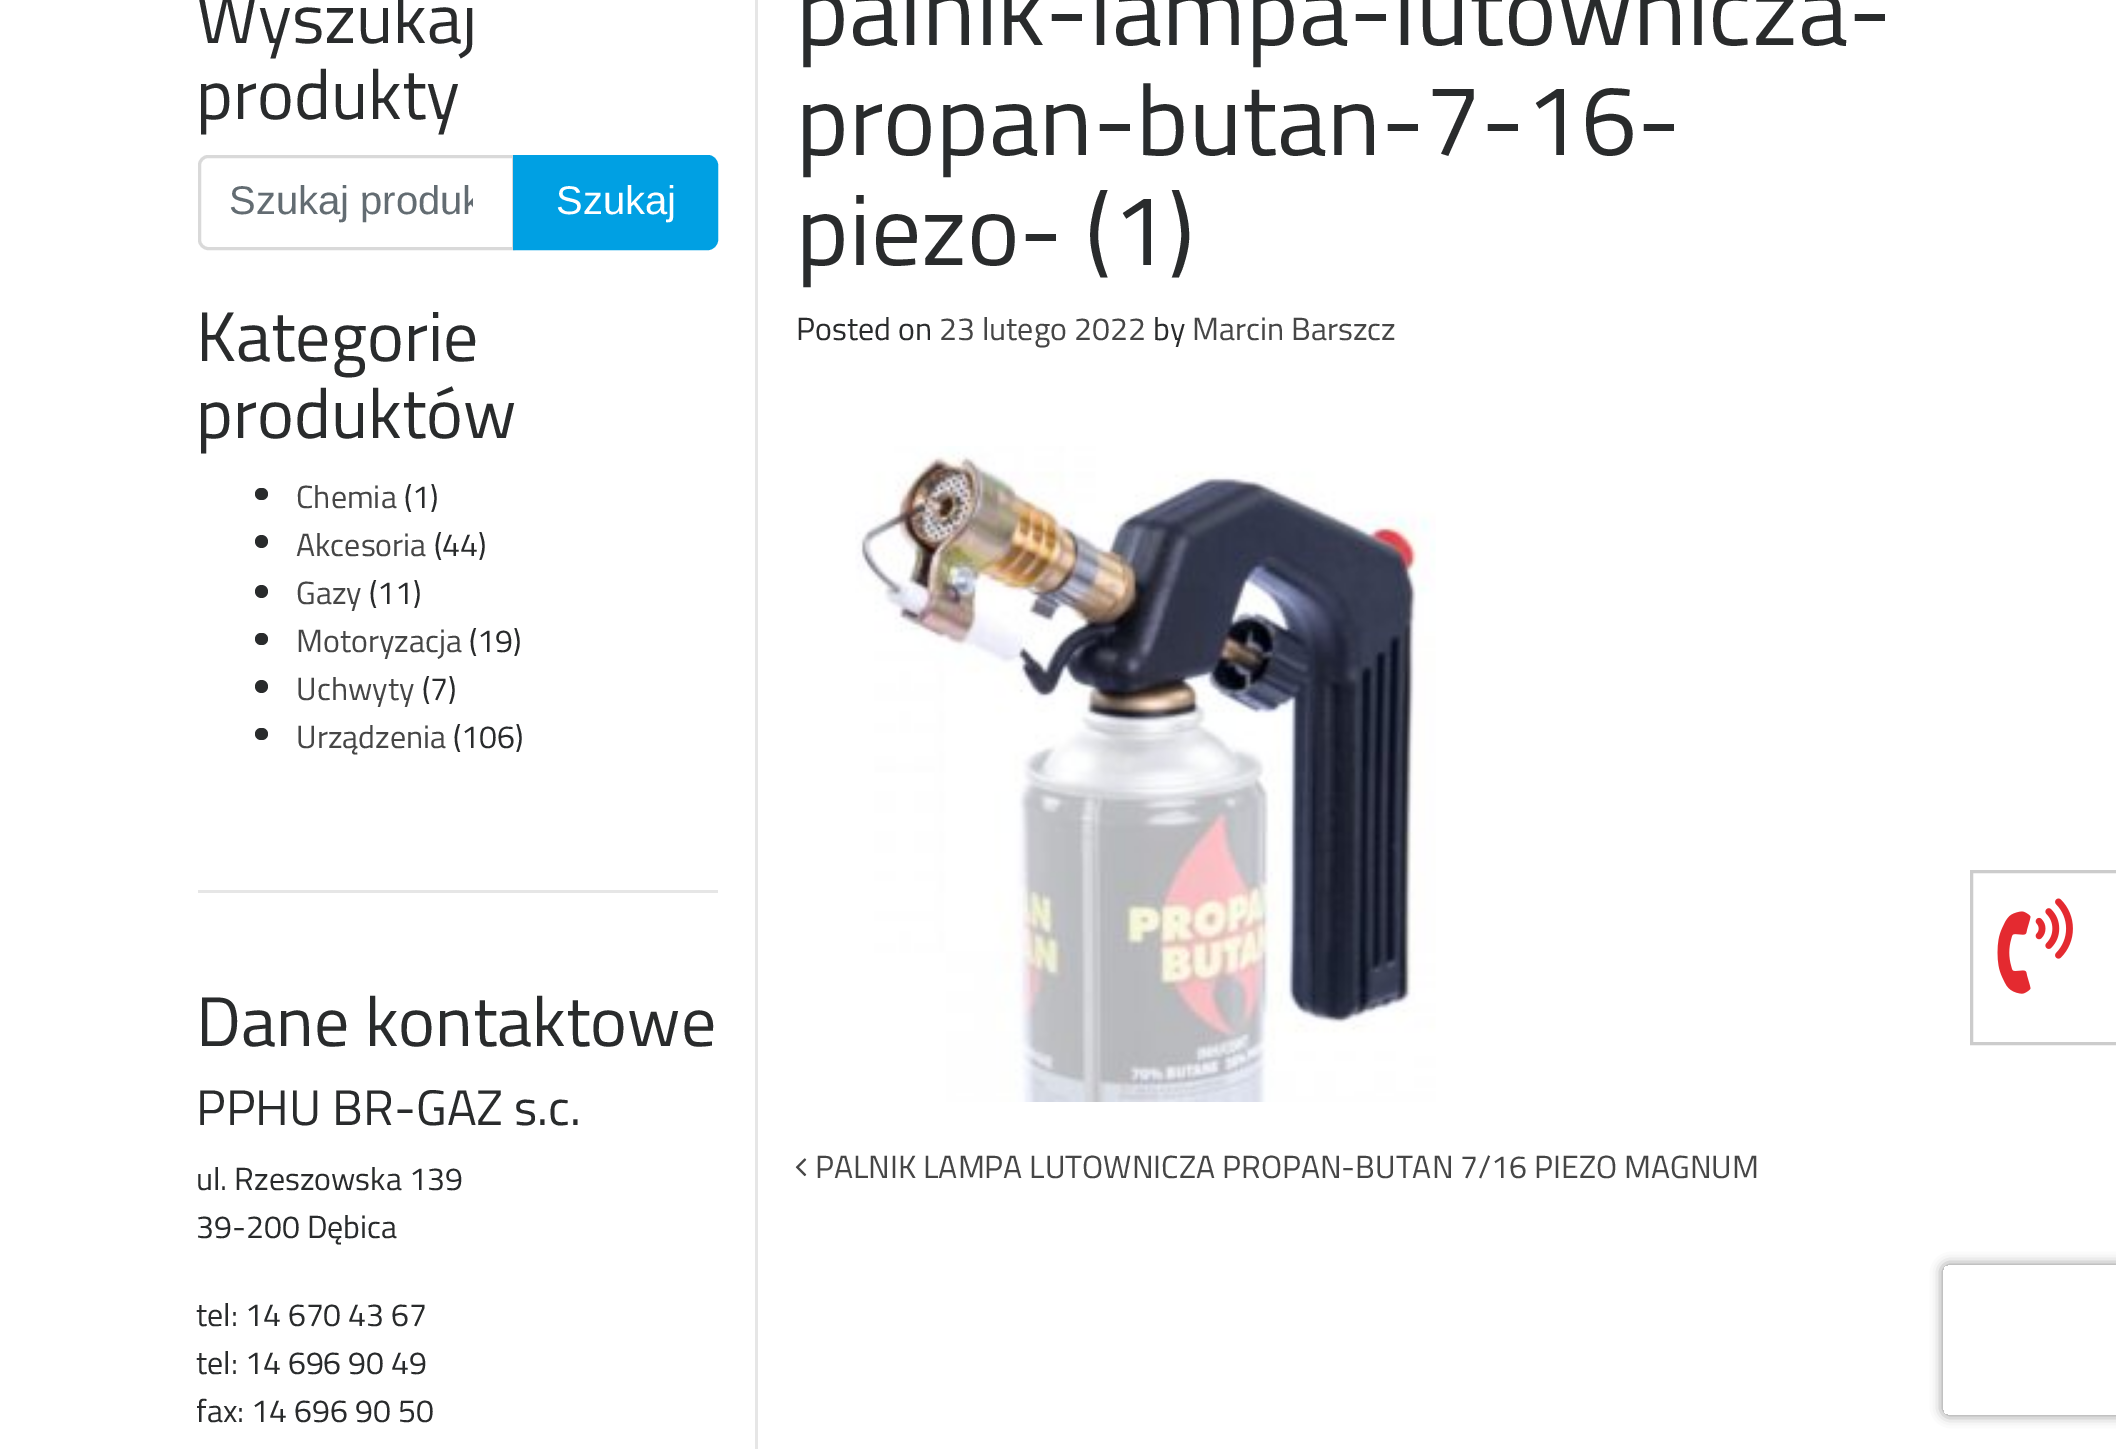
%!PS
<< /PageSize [2116 1449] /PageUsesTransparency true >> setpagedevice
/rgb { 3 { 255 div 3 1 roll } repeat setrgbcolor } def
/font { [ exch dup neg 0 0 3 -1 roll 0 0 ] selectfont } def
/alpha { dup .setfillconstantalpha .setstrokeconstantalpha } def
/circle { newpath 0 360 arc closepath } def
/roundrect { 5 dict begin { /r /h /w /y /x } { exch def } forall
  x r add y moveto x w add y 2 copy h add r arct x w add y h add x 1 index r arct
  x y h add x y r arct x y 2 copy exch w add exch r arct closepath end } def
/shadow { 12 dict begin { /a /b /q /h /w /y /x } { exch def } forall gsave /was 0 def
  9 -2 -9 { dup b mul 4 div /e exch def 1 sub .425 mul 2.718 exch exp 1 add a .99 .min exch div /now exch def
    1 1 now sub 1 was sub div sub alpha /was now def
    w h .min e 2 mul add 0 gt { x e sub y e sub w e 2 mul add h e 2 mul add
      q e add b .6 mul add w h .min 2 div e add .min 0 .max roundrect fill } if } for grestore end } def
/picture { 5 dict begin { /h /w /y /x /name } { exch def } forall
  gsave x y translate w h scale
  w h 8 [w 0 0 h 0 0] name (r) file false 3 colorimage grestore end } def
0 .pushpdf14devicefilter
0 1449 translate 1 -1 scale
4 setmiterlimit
255 255 255 rgb
0 0 2116 1449 rectfill
230 230 230 rgb
755 0 3 1449 rectfill
217 217 217 rgb
3 setlinewidth
208 156.5 moveto 513.5 156.5 lineto 513.5 248.5 lineto 208 248.5 lineto 203.5 248.5 199.5 244.5 199.5 240 curveto 199.5 165 lineto 199.5 160.5 203.5 156.5 208 156.5 curveto closepath stroke
0 160 227 rgb
514.5 156.5 moveto 708 156.5 lineto 712.5 156.5 716.5 160.5 716.5 165 curveto 716.5 240 lineto 716.5 244.5 712.5 248.5 708 248.5 curveto 514.5 248.5 lineto closepath gsave fill grestore
stroke
41 43 44 rgb
255 488 13 12 6 roundrect fill
261.5 541.5 6.5 circle fill
261.5 591.5 6.5 circle fill
255 633 13 12 6 roundrect fill
261.5 686.5 6.5 circle fill
255 728 13 12 6 roundrect fill
230 230 230 rgb
198 890 520 3 rectfill
(img/1.rgb) 855 446 581 656 picture
(img/2.rgb) 795 1158 12 19 picture
204 204 204 rgb
1971.5 871.5 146 172 rectstroke
(img/3.rgb) 1997 898 76 96 picture
gsave
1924 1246 moveto 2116 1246 lineto 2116 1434 lineto 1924 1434 lineto closepath 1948 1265 moveto 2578 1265 lineto 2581 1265 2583 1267 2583 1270 curveto 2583 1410 lineto 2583 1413 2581 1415 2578 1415 curveto 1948 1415 lineto 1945 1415 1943 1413 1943 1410 curveto 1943 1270 lineto 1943 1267 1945 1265 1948 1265 curveto closepath eoclip newpath
128 128 128 rgb
1943 1265 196 150 5 6 1 shadow
grestore
/TitilliumWeb-Regular 70 font
41 43 44 rgb
196 43 moveto (Wyszukaj) show
196 119 moveto (produkty) show
gsave
230 180 243 45 rectclip
/LiberationSans-Regular 40 font
99 108 114 rgb
229 214 moveto (Szukaj produk) show
grestore
/LiberationSans-Regular 40 font
255 255 255 rgb
556 214 moveto (Szukaj) show
/TitilliumWeb-Regular 70 font
41 43 44 rgb
196 361 moveto (Kategorie) show
196 438 moveto (produktów) show
/TitilliumWeb-Regular 32 font
70 70 70 rgb
296 508 moveto (Chemia) show
41 43 44 rgb
404 508 moveto (\(1\)) show
70 70 70 rgb
296 556 moveto (Akcesoria) show
41 43 44 rgb
434 556 moveto (\(44\)) show
70 70 70 rgb
296 604 moveto (Gazy) show
41 43 44 rgb
369 604 moveto (\(11\)) show
70 70 70 rgb
296 652 moveto (Motoryzacja) show
41 43 44 rgb
469 652 moveto (\(19\)) show
70 70 70 rgb
296 700 moveto (Uchwyty) show
41 43 44 rgb
422 700 moveto (\(7\)) show
70 70 70 rgb
296 748 moveto (Urządzenia) show
41 43 44 rgb
453 748 moveto (\(106\)) show
/TitilliumWeb-Regular 70 font
196 1046 moveto (Dane kontaktowe) show
/TitilliumWeb-Regular 50 font
196 1125 moveto (PPHU BR-GAZ s.c.) show
/TitilliumWeb-Regular 32 font
[
  [(ul. Rzeszowska 139) 196 1190]
  [(39-200 Dębica) 196 1238]
  [(tel: 14 670 43 67) 196 1326]
  [(tel: 14 696 90 49) 196 1374]
  [(fax: 14 696 90 50) 196 1422]
] { aload pop moveto show } forall
/TitilliumWeb-Regular 100 font
[
  [(palnik-lampa-lutownicza-) 796 45]
  [(propan-butan-7-16-) 796 155]
  [(piezo- \(1\)) 796 265]
] { aload pop moveto show } forall
/TitilliumWeb-Regular 32 font
796 340 moveto (Posted on) show
70 70 70 rgb
939 340 moveto (23 lutego 2022) show
41 43 44 rgb
1153 340 moveto (by) show
70 70 70 rgb
1192 340 moveto (Marcin Barszcz) show
815 1178 moveto (PALNIK LAMPA LUTOWNICZA PROPAN-BUTAN 7/16 PIEZO MAGNUM) show
.poppdf14devicefilter showpage
